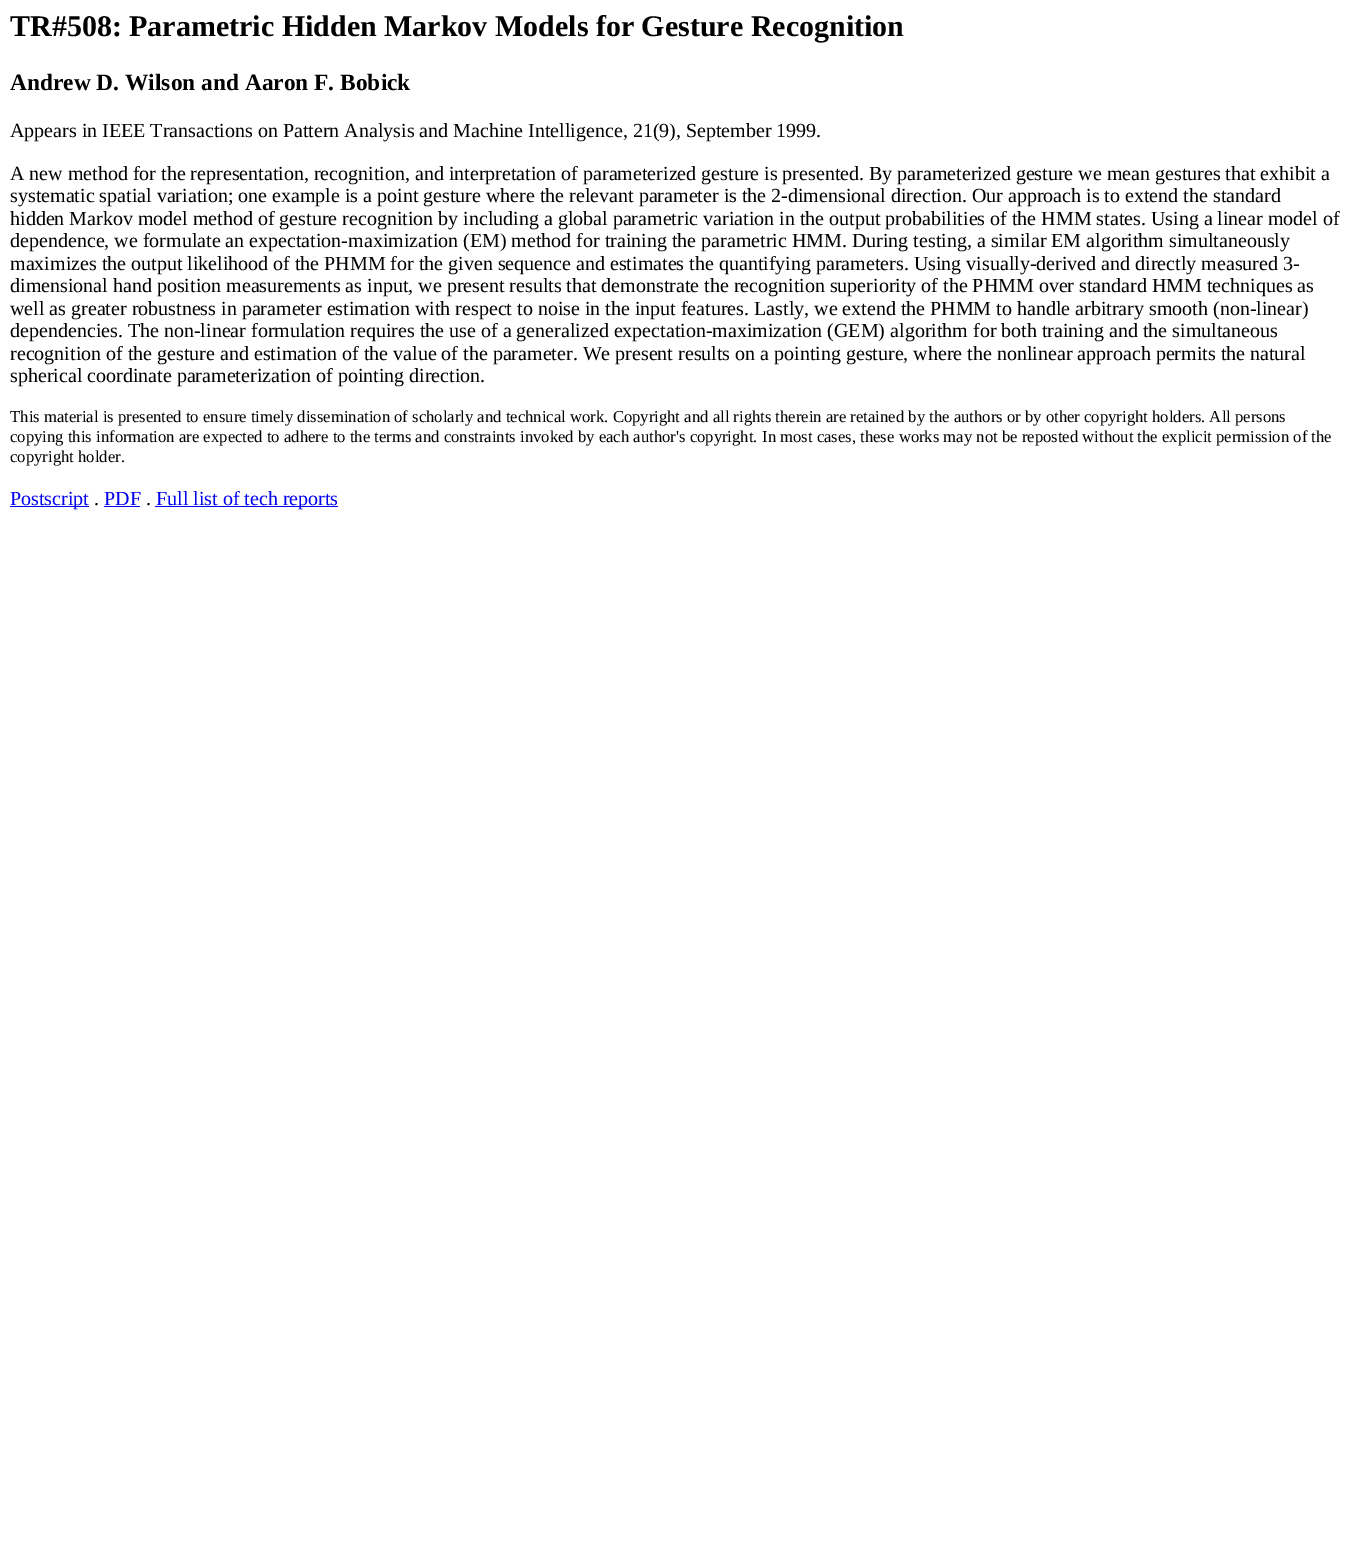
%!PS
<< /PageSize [1349 1564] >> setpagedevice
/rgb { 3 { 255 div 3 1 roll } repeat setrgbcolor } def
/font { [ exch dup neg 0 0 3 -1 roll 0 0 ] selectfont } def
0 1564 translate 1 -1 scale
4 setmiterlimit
255 255 255 rgb
0 0 1349 1564 rectfill
[
  [10 506 79 1 0 0 238]
  [104 506 36 1 0 0 238]
  [155 506 183 1 0 0 238]
] { aload pop rgb rectfill } forall
/LiberationSerif-Bold 30 font
0 0 0 rgb
10 36 moveto (TR#508: Parametric Hidden Markov Models for Gesture Recognition) show
/LiberationSerif-Bold 23.4 font
10 90 moveto (Andrew D. Wilson and Aaron F. Bobick) show
/LiberationSerif-Regular 20 font
[
  [(Appears in IEEE Transactions on Pattern Analysis and Machine Intelligence, 21\(9\), September 1999.) 10 137]
  [(A new method for the representation, recognition, and interpretation of parameterized gesture is presented. By parameterized gesture we mean gestures that exhibit a) 10 180]
  [(systematic spatial variation; one example is a point gesture where the relevant parameter is the 2-dimensional direction. Our approach is to extend the standard) 10 202]
  [(hidden Markov model method of gesture recognition by including a global parametric variation in the output probabilities of the HMM states. Using a linear model of) 10 225]
  [(dependence, we formulate an expectation-maximization \(EM\) method for training the parametric HMM. During testing, a similar EM algorithm simultaneously) 10 247]
  [(maximizes the output likelihood of the PHMM for the given sequence and estimates the quantifying parameters. Using visually-derived and directly measured 3-) 10 270]
  [(dimensional hand position measurements as input, we present results that demonstrate the recognition superiority of the PHMM over standard HMM techniques as) 10 292]
  [(well as greater robustness in parameter estimation with respect to noise in the input features. Lastly, we extend the PHMM to handle arbitrary smooth \(non-linear\)) 10 315]
  [(dependencies. The non-linear formulation requires the use of a generalized expectation-maximization \(GEM\) algorithm for both training and the simultaneous) 10 337]
  [(recognition of the gesture and estimation of the value of the parameter. We present results on a pointing gesture, where the nonlinear approach permits the natural) 10 360]
  [(spherical coordinate parameterization of pointing direction.) 10 382]
] { aload pop moveto show } forall
/LiberationSerif-Regular 16.67 font
[
  [(This material is presented to ensure timely dissemination of scholarly and technical work. Copyright and all rights therein are retained by the authors or by other copyright holders. All persons) 10 422]
  [(copying this information are expected to adhere to the terms and constraints invoked by each author's copyright.) 10 442]
  [(In most cases, these works may not be reposted without the explicit permission of the) 762 442]
  [(copyright holder.) 10 462]
] { aload pop moveto show } forall
/LiberationSerif-Regular 20 font
0 0 238 rgb
10 505 moveto (Postscript) show
0 0 0 rgb
94 505 moveto (.) show
0 0 238 rgb
104 505 moveto (PDF) show
0 0 0 rgb
146 505 moveto (.) show
0 0 238 rgb
156 505 moveto (Full list of tech reports) show
showpage
